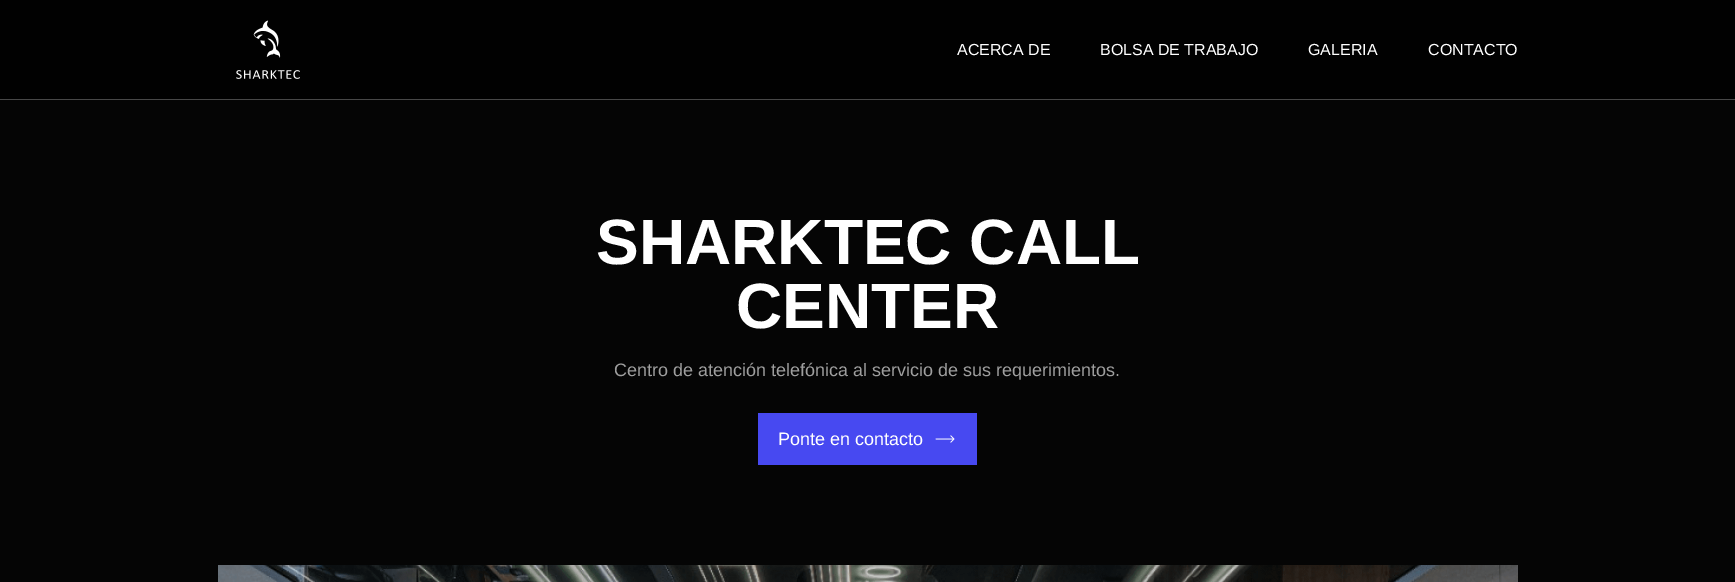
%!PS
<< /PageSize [1735 582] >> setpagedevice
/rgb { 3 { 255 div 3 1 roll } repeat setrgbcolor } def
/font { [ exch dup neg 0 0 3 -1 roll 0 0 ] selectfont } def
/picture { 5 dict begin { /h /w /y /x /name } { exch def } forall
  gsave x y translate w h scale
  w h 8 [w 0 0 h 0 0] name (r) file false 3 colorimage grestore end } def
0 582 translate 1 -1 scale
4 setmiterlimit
5 5 5 rgb
0 0 1735 582 rectfill
1 1 1 rgb
0 0 1735 99 rectfill
(img/1.rgb) 236 20 64 59 picture
71 71 71 rgb
0 99 1735 1 rectfill
71 73 241 rgb
758 413 219 52 rectfill
(img/2.rgb) 935 435 20 8 picture
(img/3.rgb) 218 565 1300 17 picture
/LiberationSans-Regular 16 font
255 255 255 rgb
[
  [(ACERCA DE) 957 55]
  [(BOLSA DE TRABAJO) 1100 55]
  [(GALERIA) 1308 55]
  [(CONTACTO) 1428 55]
] { aload pop moveto show } forall
/LiberationSans-Bold 64 font
596 264 moveto (SHARKTEC CALL) show
736 328 moveto (CENTER) show
/LiberationSans-Regular 18 font
158 158 158 rgb
614 376 moveto (Centro de atención telefónica al servicio de sus requerimientos.) show
255 255 255 rgb
778 445 moveto (Ponte en contacto) show
showpage
